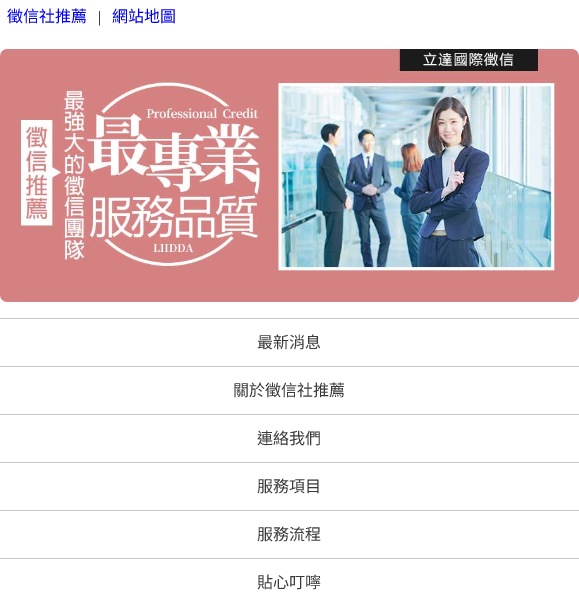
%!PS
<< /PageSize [579 597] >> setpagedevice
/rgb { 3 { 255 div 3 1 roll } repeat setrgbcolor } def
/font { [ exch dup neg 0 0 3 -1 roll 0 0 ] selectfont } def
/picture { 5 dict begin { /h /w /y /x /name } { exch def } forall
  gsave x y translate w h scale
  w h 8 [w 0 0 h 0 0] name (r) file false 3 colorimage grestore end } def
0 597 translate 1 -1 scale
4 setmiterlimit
255 255 255 rgb
0 0 579 597 rectfill
(img/1.rgb) 0 49 579 253 picture
[
  [0 318 579 1 199 199 199]
  [0 366 579 1 199 199 199]
  [0 414 579 1 199 199 199]
  [0 462 579 1 199 199 199]
  [0 510 579 1 199 199 199]
  [0 558 579 1 199 199 199]
] { aload pop rgb rectfill } forall
/NotoSansCJKTC-Regular 16 font
0 0 238 rgb
7 22 moveto (徵信社推薦) show
/LiberationSerif-Regular 16 font
0 0 0 rgb
98 22 moveto (|) show
/NotoSansCJKTC-Regular 16 font
0 0 238 rgb
112 22 moveto (網站地圖) show
58 58 58 rgb
[
  [(最新消息) 257 348]
  [(關於徵信社推薦) 233 396]
  [(連絡我們) 257 444]
  [(服務項目) 257 492]
  [(服務流程) 257 540]
  [(貼心叮嚀) 257 588]
] { aload pop moveto show } forall
showpage
